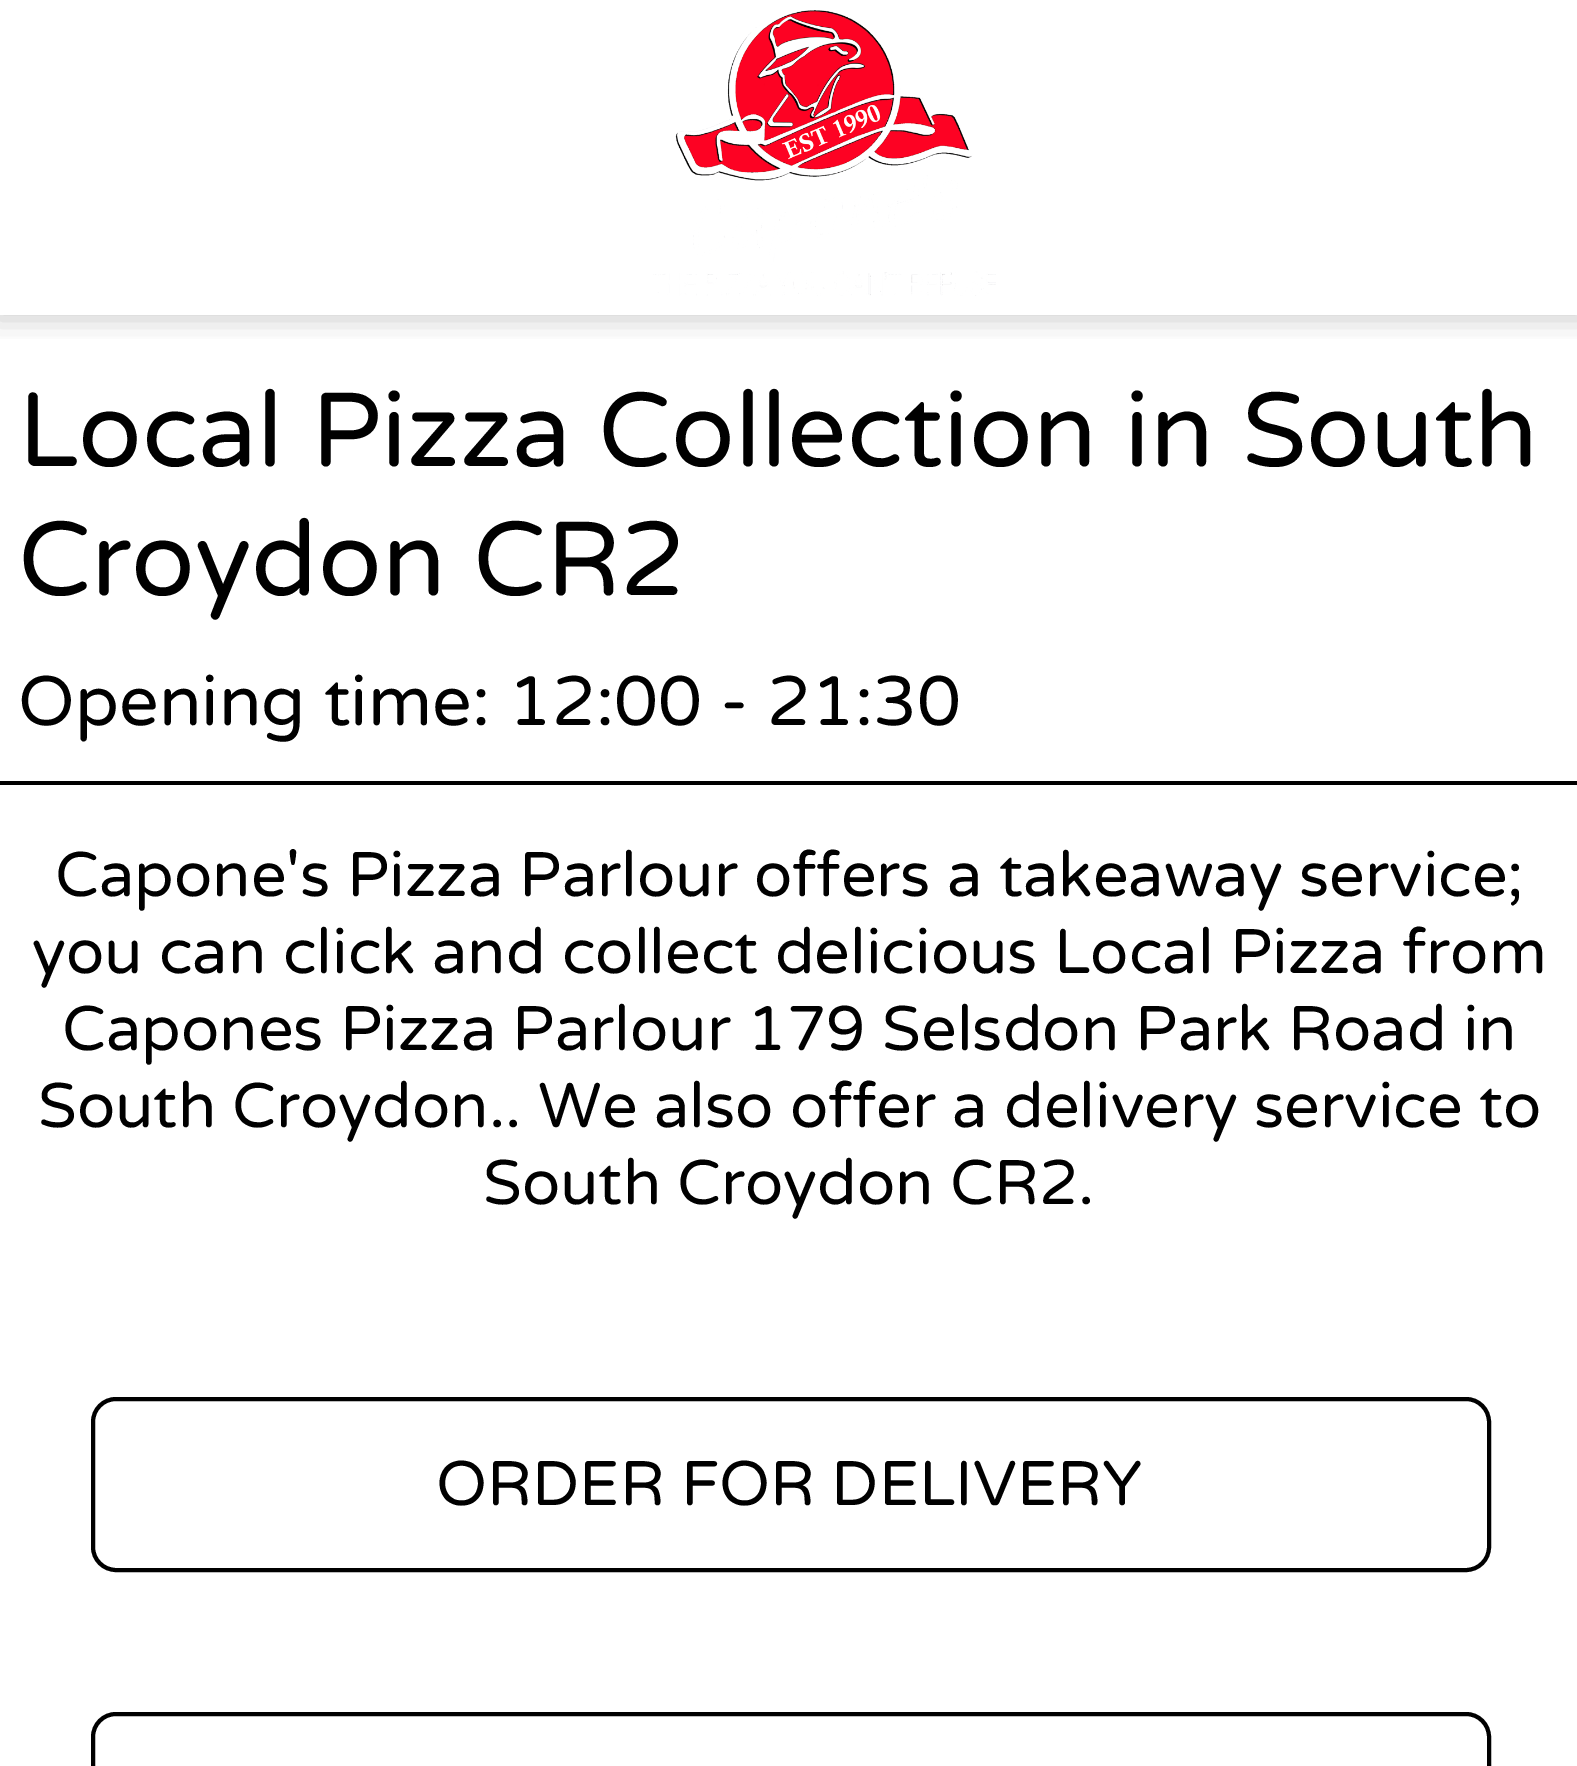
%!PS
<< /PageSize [1577 1766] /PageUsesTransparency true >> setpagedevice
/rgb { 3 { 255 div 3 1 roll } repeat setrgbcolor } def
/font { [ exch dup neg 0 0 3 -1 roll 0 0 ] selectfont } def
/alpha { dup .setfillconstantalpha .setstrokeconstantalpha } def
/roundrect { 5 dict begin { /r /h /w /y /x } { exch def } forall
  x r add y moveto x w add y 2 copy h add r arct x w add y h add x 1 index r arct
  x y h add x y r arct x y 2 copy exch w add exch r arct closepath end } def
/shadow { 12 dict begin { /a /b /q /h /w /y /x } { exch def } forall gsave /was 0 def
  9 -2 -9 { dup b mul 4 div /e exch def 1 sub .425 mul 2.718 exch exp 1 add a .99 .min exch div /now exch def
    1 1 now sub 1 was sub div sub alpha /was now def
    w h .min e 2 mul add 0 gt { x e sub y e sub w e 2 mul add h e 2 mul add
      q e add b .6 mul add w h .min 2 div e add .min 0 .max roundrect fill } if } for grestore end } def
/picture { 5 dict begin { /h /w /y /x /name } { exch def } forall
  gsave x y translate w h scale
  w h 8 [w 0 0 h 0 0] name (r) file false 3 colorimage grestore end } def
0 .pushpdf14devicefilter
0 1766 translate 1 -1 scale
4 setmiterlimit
255 255 255 rgb
0 0 1577 1766 rectfill
gsave
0 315 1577 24 rectclip
53 53 53 rgb
-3 -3 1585 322 0 14 0.25 shadow
grestore
(img/1.rgb) 653 10 343 286 picture
0 0 0 rgb
0 781 1577 4 rectfill
4 setlinewidth
93 1399 1396 171 23 roundrect stroke
93 1714 1396 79 23 roundrect stroke
/VarelaRound-Regular 105 font
18 466 moveto (Local Pizza Collection in South) show
18 595 moveto (Croydon CR2) show
/VarelaRound-Regular 70 font
18 725 moveto (Opening time: 12:00 - 21:30) show
/VarelaRound-Regular 63 font
[
  [(Capone's Pizza Parlour offers a takeaway service;) 55 896]
  [(you can click and collect delicious Local Pizza from) 32 973]
  [(Capones Pizza Parlour 179 Selsdon Park Road in) 62 1050]
  [(South Croydon.. We also offer a delivery service to) 38 1127]
  [(South Croydon CR2.) 483 1204]
  [(ORDER FOR DELIVERY) 436 1505]
] { aload pop moveto show } forall
.poppdf14devicefilter showpage
